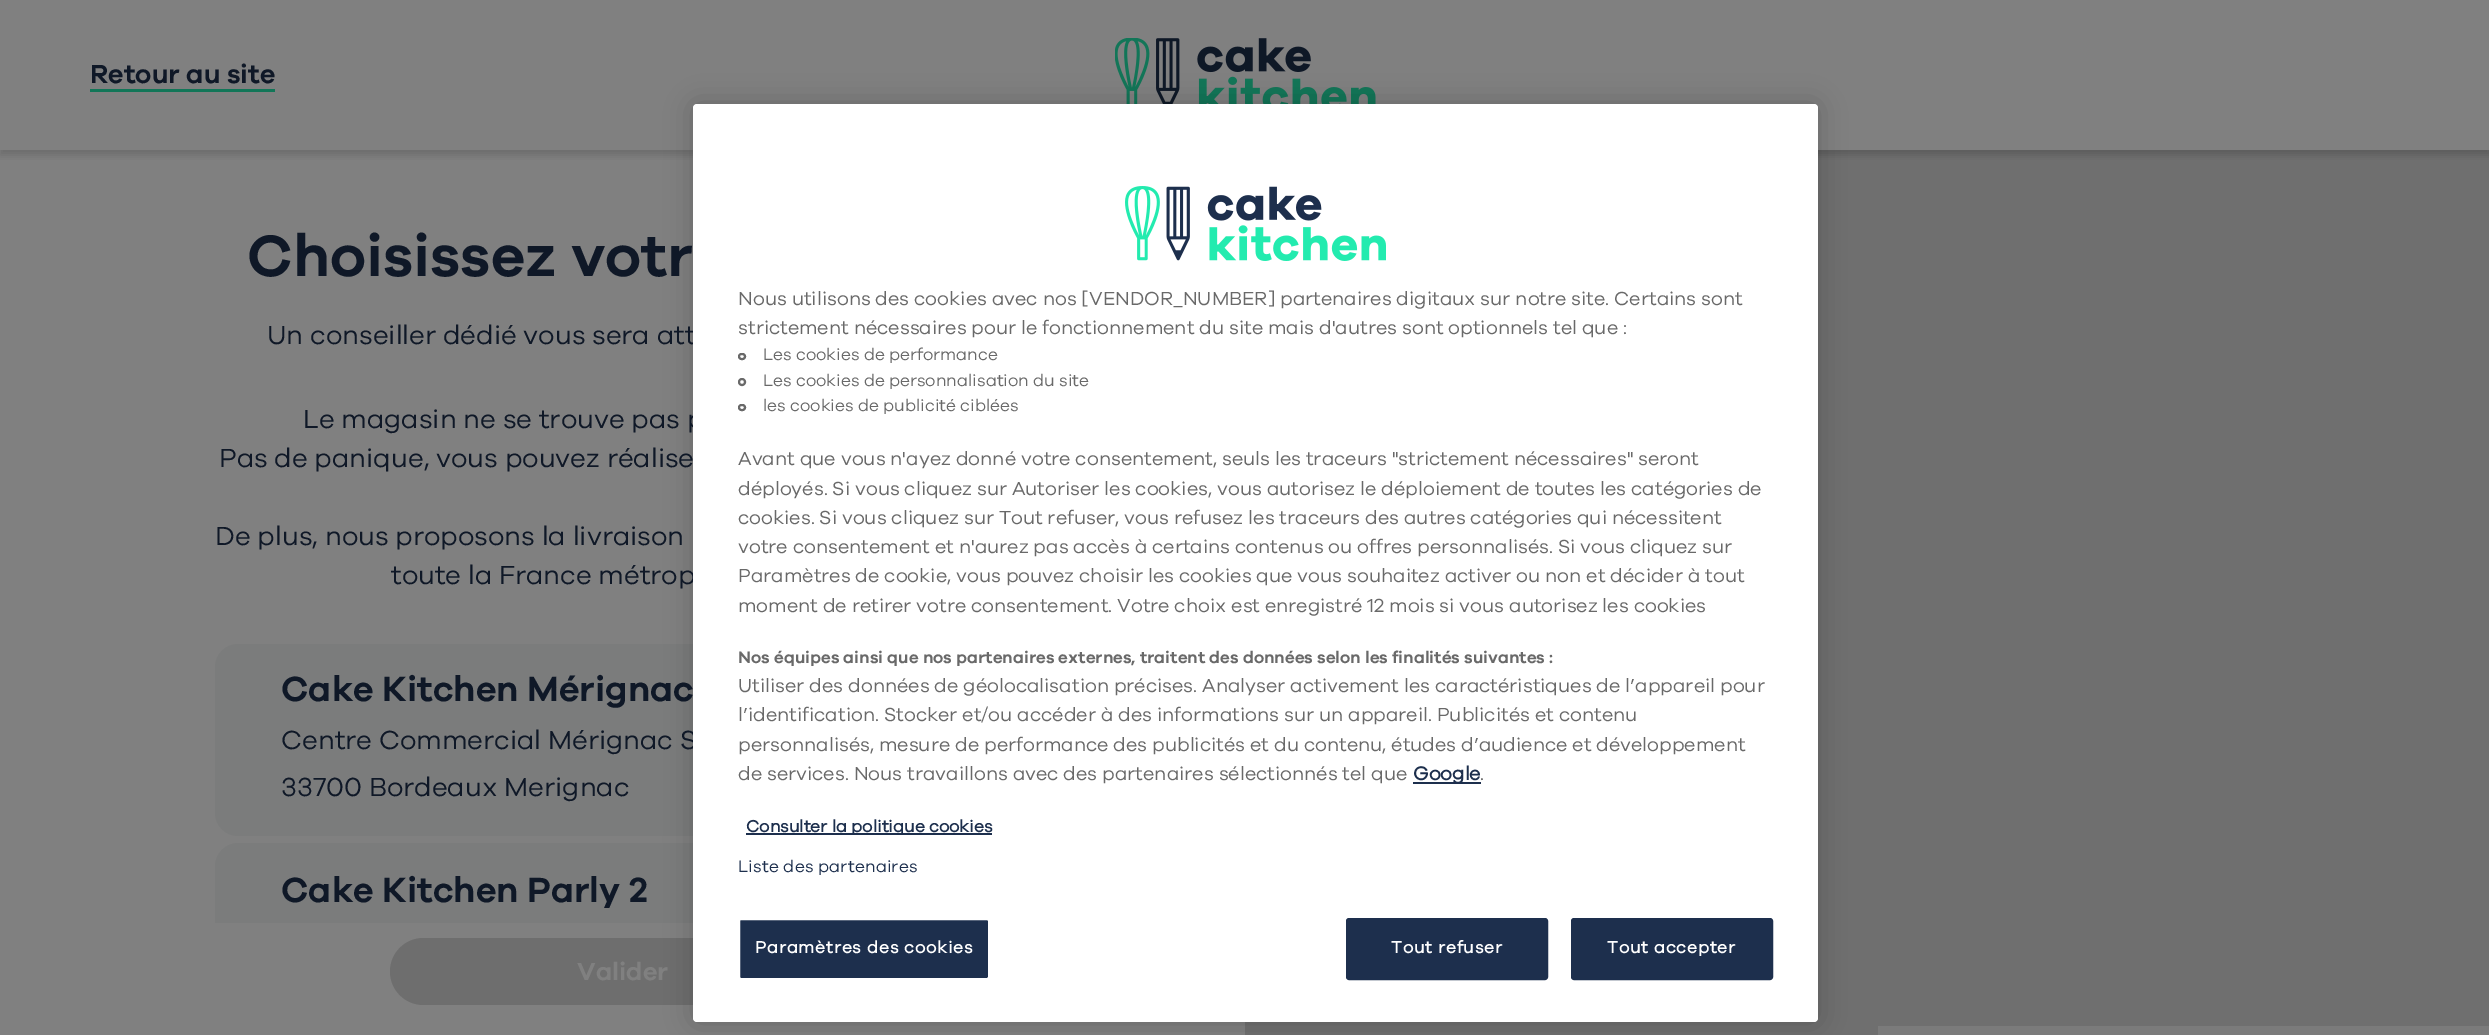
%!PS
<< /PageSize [2489 1035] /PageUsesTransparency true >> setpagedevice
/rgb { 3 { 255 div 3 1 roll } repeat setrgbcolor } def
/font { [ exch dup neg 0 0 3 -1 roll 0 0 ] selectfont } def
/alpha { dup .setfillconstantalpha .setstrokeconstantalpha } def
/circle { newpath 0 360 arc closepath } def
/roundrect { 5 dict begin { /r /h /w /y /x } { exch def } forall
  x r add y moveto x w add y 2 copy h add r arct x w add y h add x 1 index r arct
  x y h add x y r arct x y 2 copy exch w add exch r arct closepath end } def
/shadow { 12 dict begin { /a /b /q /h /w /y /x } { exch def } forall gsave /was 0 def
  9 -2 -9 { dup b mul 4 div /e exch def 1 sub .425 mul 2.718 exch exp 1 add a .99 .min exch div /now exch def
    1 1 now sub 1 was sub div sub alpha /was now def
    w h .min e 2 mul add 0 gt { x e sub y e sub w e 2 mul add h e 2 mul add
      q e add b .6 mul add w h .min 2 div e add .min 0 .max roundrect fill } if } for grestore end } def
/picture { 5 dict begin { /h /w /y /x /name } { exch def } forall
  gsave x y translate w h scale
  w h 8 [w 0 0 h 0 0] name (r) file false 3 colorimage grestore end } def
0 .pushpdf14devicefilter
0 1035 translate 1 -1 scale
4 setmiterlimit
128 128 128 rgb
0 0 2489 1035 rectfill
111 111 111 rgb
1245 150 1244 885 rectfill
gsave
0 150 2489 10 rectclip
0 0 0 rgb
0 5 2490 150 0 4 0.16 shadow
grestore
18 118 88 rgb
90 89 185 3 rectfill
(img/1.rgb) 1115 38 261 66 picture
123 124 124 rgb
215 644 816 192 23 roundrect fill
238 843 moveto 1008 843 lineto 1020.5 843 1031 853.5 1031 866 curveto 1031 923 lineto 215 923 lineto 215 866 lineto 215 853.5 225.5 843 238 843 curveto closepath fill
110 110 110 rgb
390 938 465 67 33.5 roundrect fill
123 123 123 rgb
1878 1026 611 9 rectfill
0 0 0 rgb
693 104 1125 918 4 13.5 0.2 shadow
/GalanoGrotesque-SemiBold 27 font
15 24 39 rgb
90 83 moveto (Retour au site) show
/GalanoGrotesque-SemiBold 60 font
247 276 moveto (Choisissez votr) show
/GalanoGrotesque-Regular 27 font
[
  [(Un conseiller dédié vous sera att) 267 344]
  [(Le magasin ne se trouve pas p) 303 428]
  [(Pas de panique, vous pouvez réalise) 219 467]
  [(De plus, nous proposons la livraison) 215 545]
  [(toute la France métrop) 391 584]
] { aload pop moveto show } forall
/GalanoGrotesque-SemiBold 36 font
281 701 moveto (Cake Kitchen Mérignac) show
/GalanoGrotesque-Regular 27 font
281 749 moveto (Centre Commercial Mérignac S) show
281 796 moveto (33700 Bordeaux Merignac) show
/GalanoGrotesque-SemiBold 36 font
281 902 moveto (Cake Kitchen Parly 2) show
/GalanoGrotesque-SemiBold 25.5 font
128 128 128 rgb
577 980 moveto (Valider) show
255 255 255 rgb
693 104 1125 918 4 roundrect fill
(img/2.rgb) 1125 186 261 75 picture
/GalanoGrotesque-Regular 19.5 font
105 105 105 rgb
738 305 moveto (Nous utilisons des cookies avec nos [VENDOR_NUMBER] partenaires digitaux sur notre site. Certains sont) show
738 334 moveto (strictement nécessaires pour le fonctionnement du site mais d'autres sont optionnels tel que :) show
2 setlinewidth
739 354 6 5 2.5 roundrect stroke
/GalanoGrotesque-Regular 17.05 font
763 360 moveto (Les cookies de performance) show
742 382 3 circle stroke
763 386 moveto (Les cookies de personnalisation du site) show
739 405 6 5 2.5 roundrect stroke
763 411 moveto (les cookies de publicité ciblées) show
/GalanoGrotesque-Regular 19.5 font
[
  [(Avant que vous n'ayez donné votre consentement, seuls les traceurs "strictement nécessaires" seront) 738 465]
  [(déployés. Si vous cliquez sur Autoriser les cookies, vous autorisez le déploiement de toutes les catégories de) 738 495]
  [(cookies. Si vous cliquez sur Tout refuser, vous refusez les traceurs des autres catégories qui nécessitent) 738 524]
  [(votre consentement et n'aurez pas accès à certains contenus ou offres personnalisés. Si vous cliquez sur) 738 553]
  [(Paramètres de cookie, vous pouvez choisir les cookies que vous souhaitez activer ou non et décider à tout) 738 582]
  [(moment de retirer votre consentement. Votre choix est enregistré 12 mois si vous autorisez les cookies) 738 612]
] { aload pop moveto show } forall
/GalanoGrotesque-SemiBold 17.05 font
738 663 moveto (Nos équipes ainsi que nos partenaires externes, traitent des données selon les finalités suivantes :) show
/GalanoGrotesque-Regular 19.5 font
[
  [(Utiliser des données de géolocalisation précises. Analyser activement les caractéristiques de l’appareil pour) 738 692]
  [(l’identification. Stocker et/ou accéder à des informations sur un appareil. Publicités et contenu) 738 721]
  [(personnalisés, mesure de performance des publicités et du contenu, études d’audience et développement) 738 751]
  [(de services. Nous travaillons avec des partenaires sélectionnés tel que) 738 780]
] { aload pop moveto show } forall
29 47 77 rgb
1413 782 68 2 rectfill
/GalanoGrotesque-Bold 19.5 font
1413 780 moveto (Google) show
/GalanoGrotesque-Regular 19.5 font
105 105 105 rgb
1480 780 moveto (.) show
29 47 77 rgb
746 833 246 2 rectfill
/GalanoGrotesque-Bold 17.05 font
746 832 moveto (Consulter la politique cookies) show
/GalanoGrotesque-Regular 17.05 font
738 872 moveto 0.2 0 (Liste des partenaires) ashow
739 919 250 60 2 roundrect gsave fill grestore
255 255 255 rgb
stroke
/GalanoGrotesque-Bold 17.05 font
755 953 moveto 0.85 0 (Paramètres des cookies) ashow
29 47 77 rgb
1347 919 200 60 2 roundrect gsave fill grestore
stroke
255 255 255 rgb
1391 953 moveto 0.85 0 (Tout refuser) ashow
29 47 77 rgb
1572 919 200 60 2 roundrect gsave fill grestore
stroke
255 255 255 rgb
1607 953 moveto 0.85 0 (Tout accepter) ashow
.poppdf14devicefilter showpage
